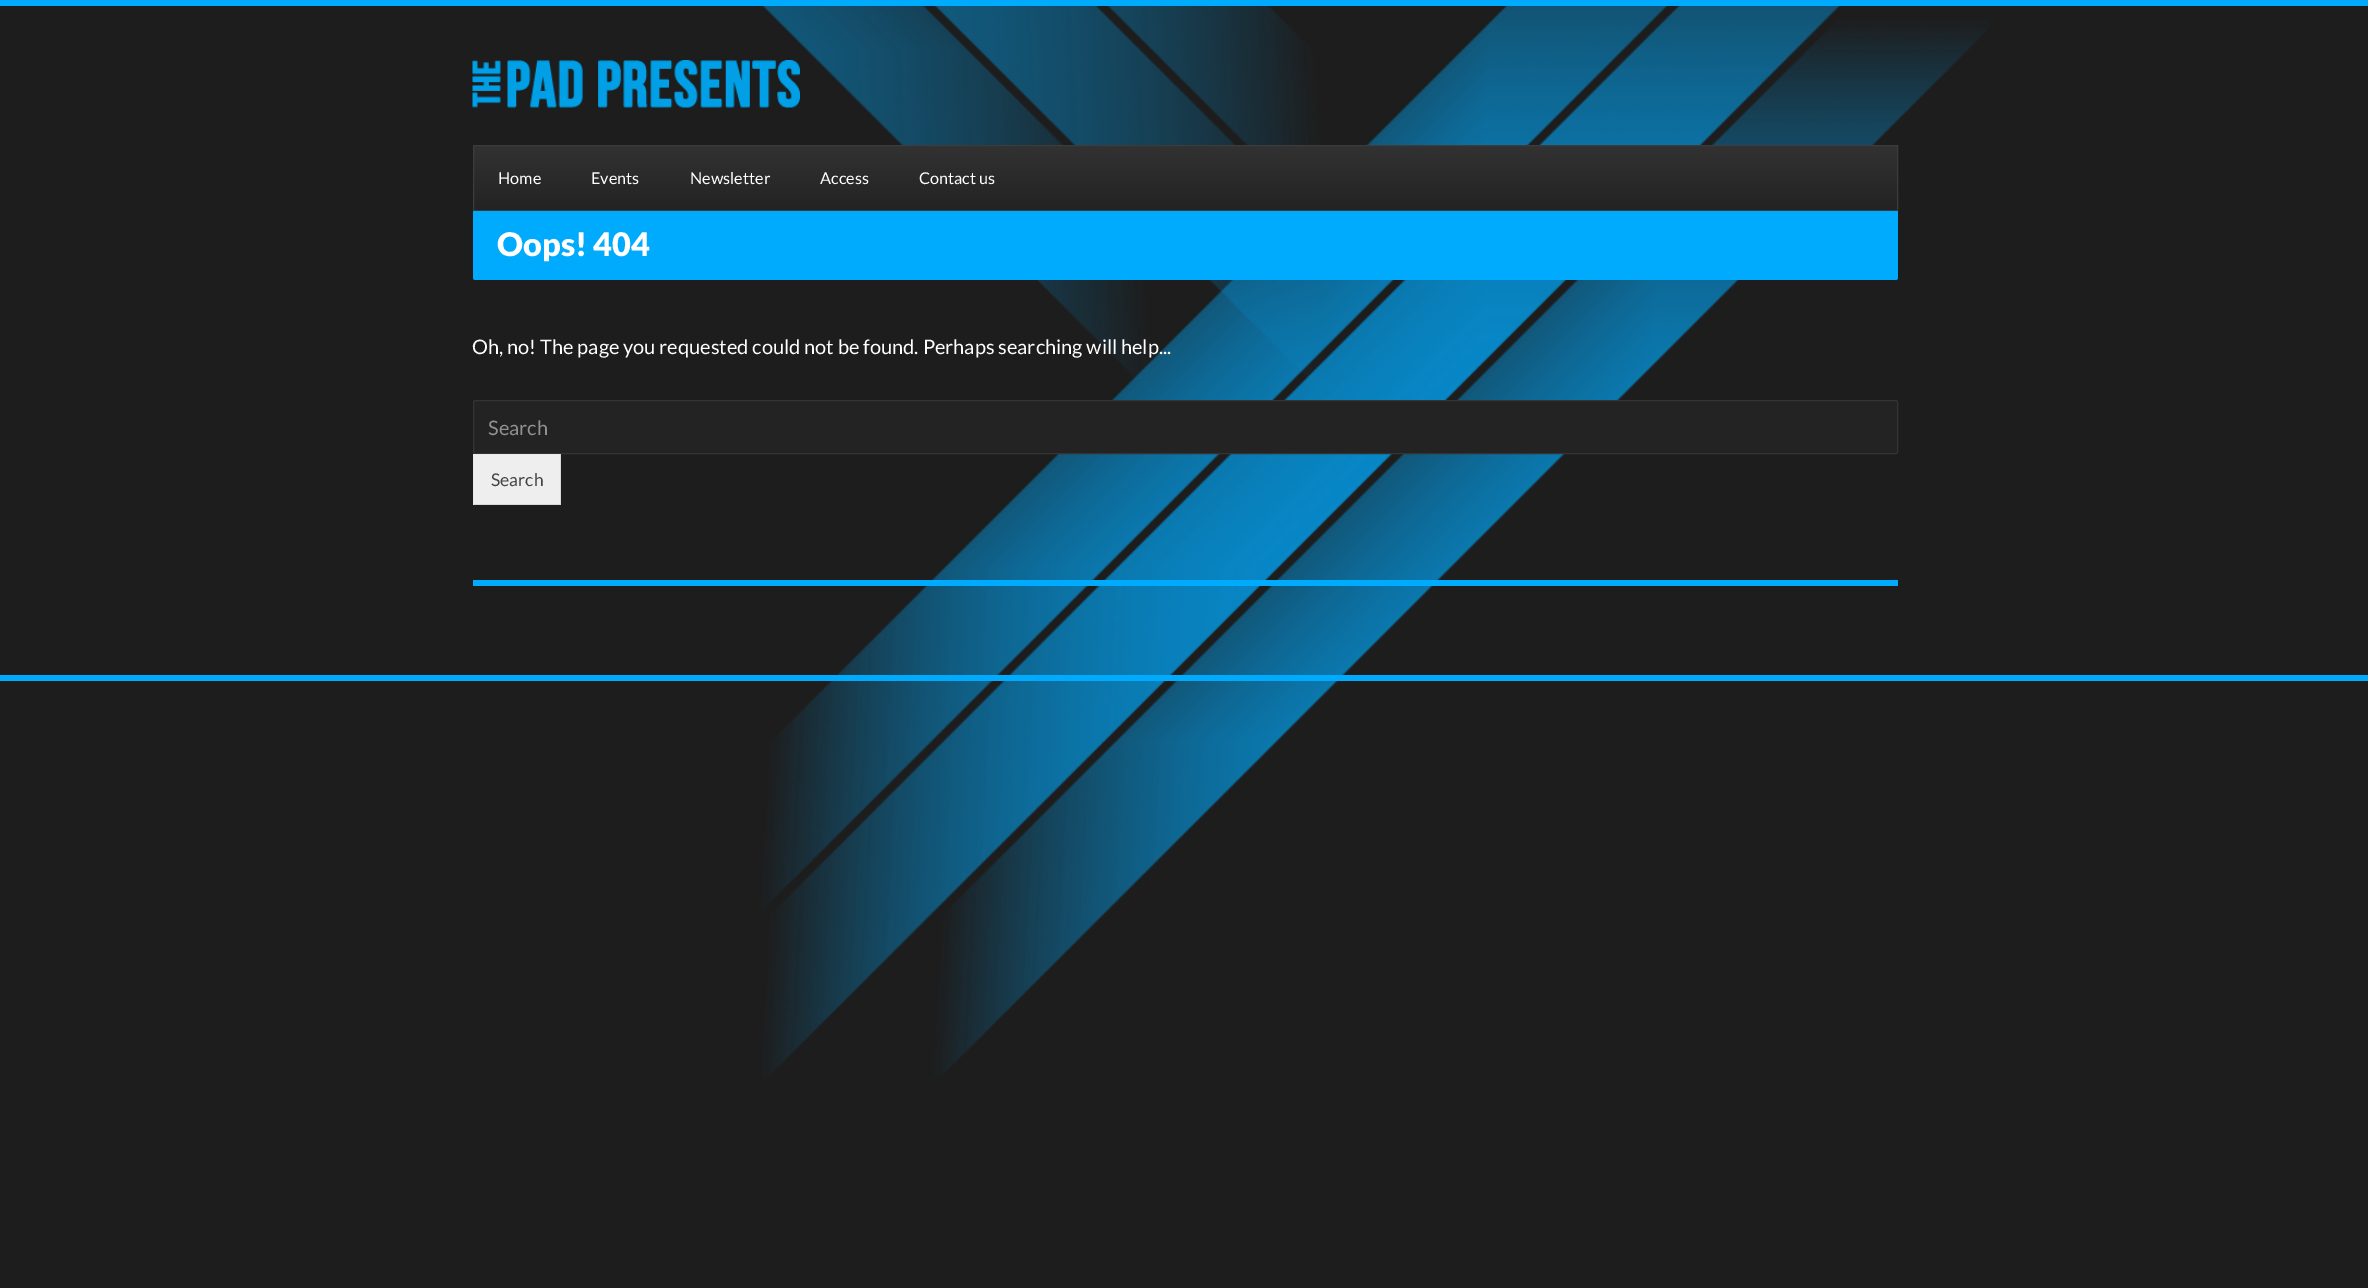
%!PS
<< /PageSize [2368 1288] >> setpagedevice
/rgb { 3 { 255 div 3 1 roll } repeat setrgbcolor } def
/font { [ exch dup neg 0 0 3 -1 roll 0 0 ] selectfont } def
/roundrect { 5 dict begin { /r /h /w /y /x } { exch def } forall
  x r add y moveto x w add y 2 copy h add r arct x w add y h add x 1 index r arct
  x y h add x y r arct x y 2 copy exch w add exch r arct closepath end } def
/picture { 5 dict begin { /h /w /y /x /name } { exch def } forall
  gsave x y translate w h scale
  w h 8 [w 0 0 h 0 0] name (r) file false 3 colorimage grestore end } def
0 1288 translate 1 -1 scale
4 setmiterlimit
29 29 29 rgb
0 0 2368 1288 rectfill
(img/1.rgb) 762 6 1227 1071 picture
0 171 254 rgb
0 0 2368 6 rectfill
0 675 2368 6 rectfill
(img/2.rgb) 472 60 328 48 picture
gsave 474 146 moveto 1897 146 lineto 1897 210 lineto 474 210 lineto closepath clip newpath
<< /ShadingType 2 /ColorSpace /DeviceRGB /Coords [1185 146 1185 210] /Extend [true true] /Function << /FunctionType 2 /Domain [0 1] /C0 [0.196 0.196 0.196] /C1 [0.137 0.137 0.137] /N 1 >> >> shfill grestore
60 60 60 rgb
473.5 145.5 1424 65 rectstroke
0 171 254 rgb
473 211 moveto 1898 211 lineto 1898 277.5 lineto 1898 279 1897 280 1895.5 280 curveto 475.5 280 lineto 474 280 473 279 473 277.5 curveto closepath fill
35 35 35 rgb
473.5 400.5 1424 53 2 roundrect gsave fill grestore
52 52 52 rgb
stroke
[
  [474 455 86 49 238 238 238]
  [473 454 88 1 233 233 233]
  [560 454 1 51 216 216 216]
  [473 504 88 1 216 216 216]
  [473 454 1 51 233 233 233]
  [473 580 1425 6 0 171 254]
] { aload pop rgb rectfill } forall
/Lato-Regular 16.25 font
255 255 255 rgb
[
  [(Home) 498 184]
  [(Events) 591 184]
  [(Newsletter) 690 184]
  [(Access) 820 184]
  [(Contact us) 919 184]
] { aload pop moveto show } forall
/Lato-Black 32.5 font
497 256 moveto (Oops! 404) show
/Lato-Regular 20 font
472 354 moveto (Oh, no! The page you requested could not be found. Perhaps searching will help...) show
145 145 145 rgb
488 435 moveto (Search) show
/Lato-Regular 17.5 font
68 68 68 rgb
491 486 moveto (Search) show
showpage
